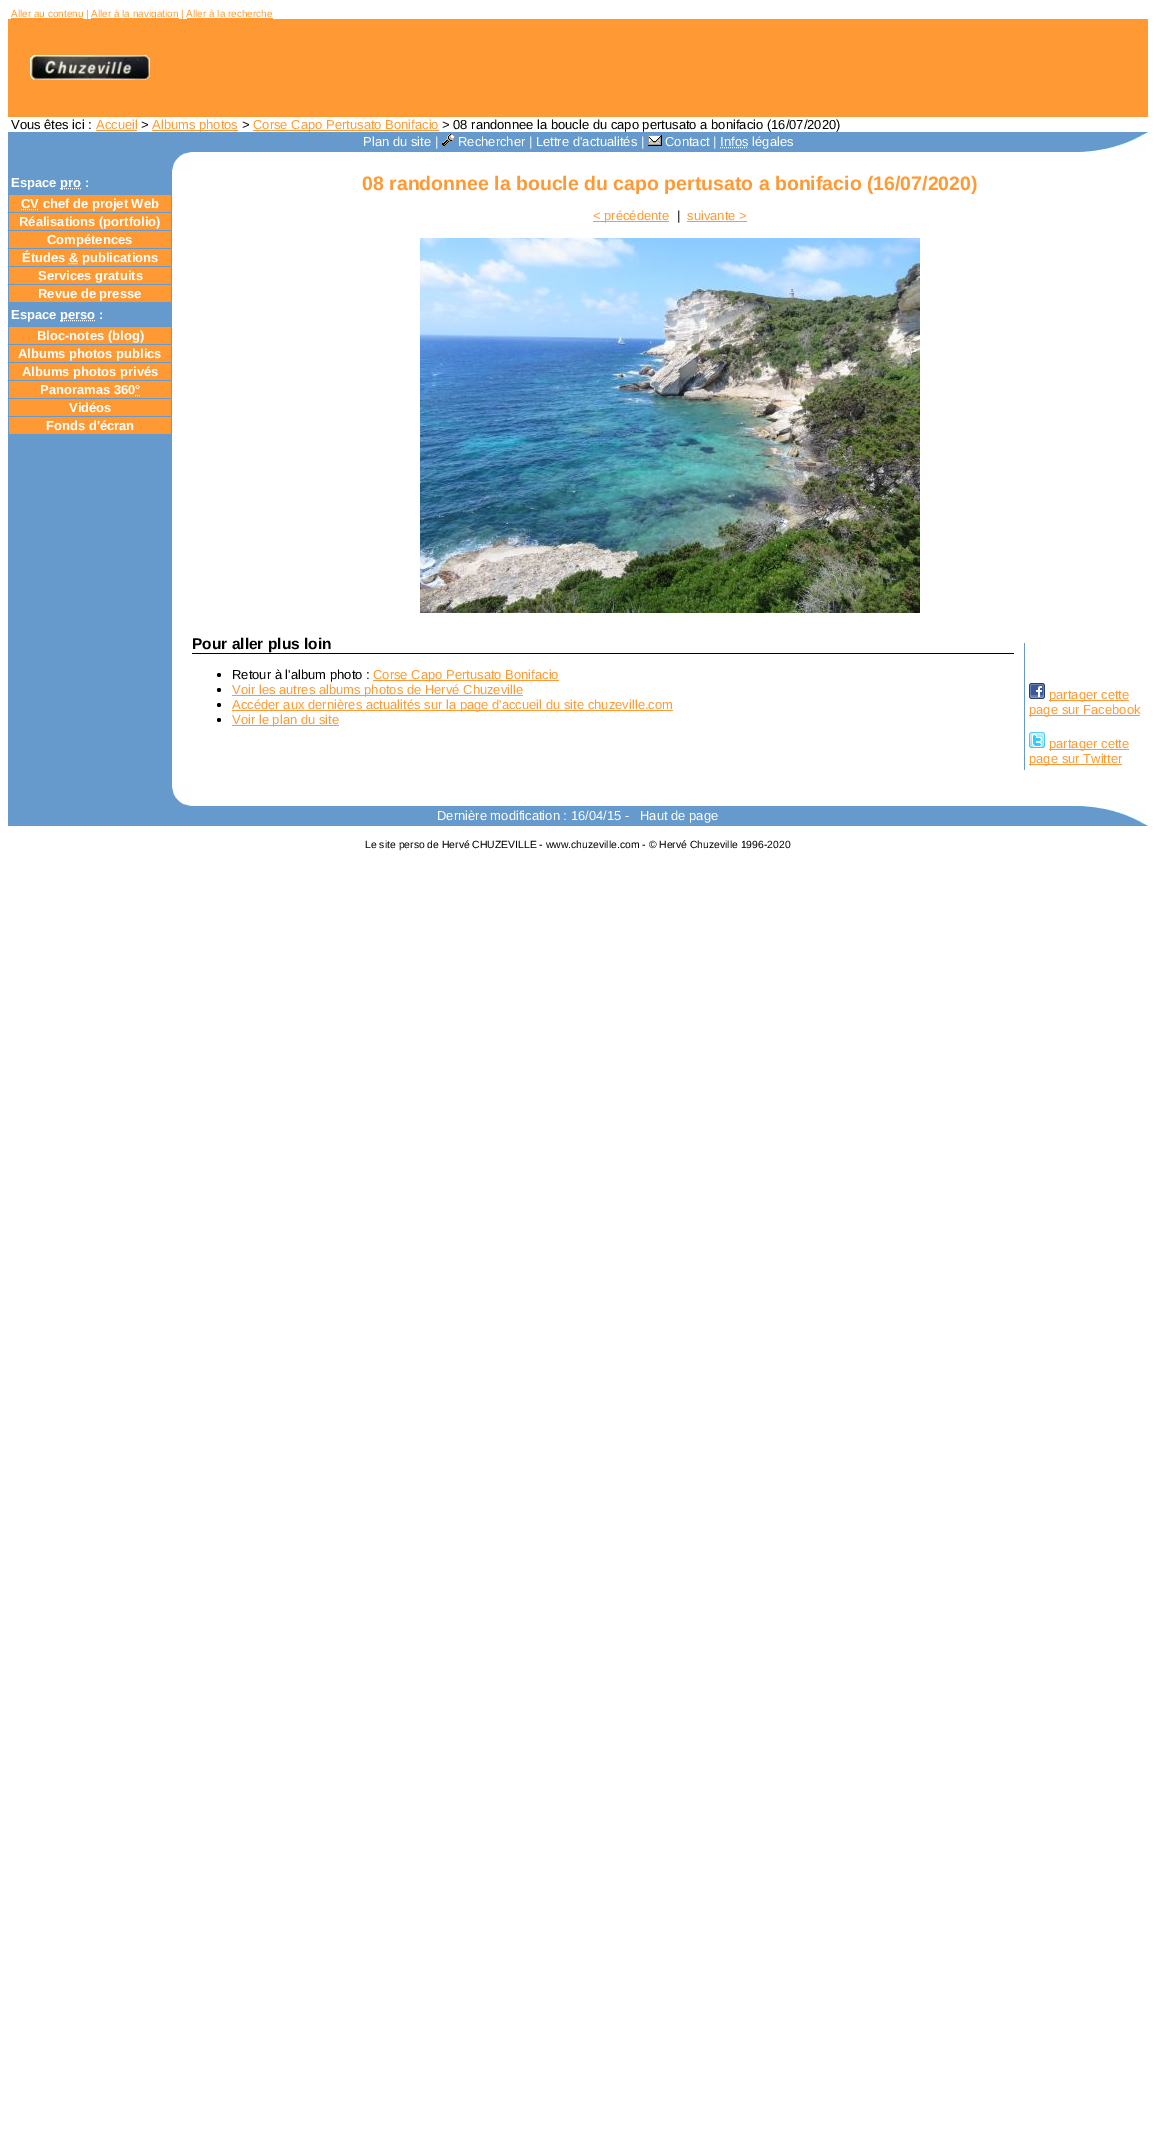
%!PS
<< /PageSize [1156 2133] >> setpagedevice
/rgb { 3 { 255 div 3 1 roll } repeat setrgbcolor } def
/font { [ exch dup neg 0 0 3 -1 roll 0 0 ] selectfont } def
/circle { newpath 0 360 arc closepath } def
/picture { 5 dict begin { /h /w /y /x /name } { exch def } forall
  gsave x y translate w h scale
  w h 8 [w 0 0 h 0 0] name (r) file false 3 colorimage grestore end } def
0 2133 translate 1 -1 scale
4 setmiterlimit
255 255 255 rgb
0 0 1156 2133 rectfill
[
  [11 18 72 1 255 153 51]
  [91 18 88 1 255 153 51]
  [187 18 86 1 255 153 51]
  [8 19 1140 98 255 153 51]
] { aload pop rgb rectfill } forall
(img/1.rgb) 30 55 120 25 picture
[
  [96 130 41 1 255 153 51]
  [152 130 86 1 255 153 51]
  [253 130 186 1 255 153 51]
  [8 132 1138 20 102 153 204]
] { aload pop rgb rectfill } forall
(img/2.rgb) 1079 132 69 20 picture
(img/3.rgb) 442 134 13 12 picture
(img/4.rgb) 648 135 14 11 picture
255 255 255 rgb
[1 1] 0 setdash
720 147.5 moveto 748 147.5 lineto stroke
102 153 204 rgb
8 152 164 654 rectfill
255 255 255 rgb
60 188.5 moveto 81 188.5 lineto stroke
255 153 51 rgb
9 195 162 17 rectfill
255 255 255 rgb
21 209.5 moveto 39 209.5 lineto stroke
[
  [9 213 162 17 255 153 51]
  [9 231 162 17 255 153 51]
  [9 249 162 17 255 153 51]
] { aload pop rgb rectfill } forall
255 255 255 rgb
68.5 263.5 moveto 78 263.5 lineto stroke
255 153 51 rgb
9 267 162 17 rectfill
9 285 162 17 rectfill
255 255 255 rgb
60 320.5 moveto 95.5 320.5 lineto stroke
[
  [9 327 162 17 255 153 51]
  [9 345 162 17 255 153 51]
  [9 363 162 17 255 153 51]
  [9 381 162 17 255 153 51]
] { aload pop rgb rectfill } forall
255 255 255 rgb
[] 0 setdash
135 395.5 moveto 136 395.5 lineto 137 395.5 moveto 138 395.5 lineto 139 395.5 moveto 140 395.5 lineto stroke
[
  [9 399 162 17 255 153 51]
  [9 417 162 17 255 153 51]
  [172 152 15 15 102 153 204]
] { aload pop rgb rectfill } forall
(img/5.rgb) 172 152 20 20 picture
255 153 51 rgb
593 221 76 1 rectfill
687 221 60 1 rectfill
(img/6.rgb) 420 238 500 375 picture
0 0 0 rgb
192 653 822 1 rectfill
219 675 2 circle fill
255 153 51 rgb
373 680 186 1 rectfill
0 0 0 rgb
219 690 2 circle fill
255 153 51 rgb
232 695 291 1 rectfill
0 0 0 rgb
219 705 2 circle fill
255 153 51 rgb
232 710 441 1 rectfill
0 0 0 rgb
219 720 2 circle fill
255 153 51 rgb
232 725 107 1 rectfill
102 153 204 rgb
1024 643 1 127 rectfill
(img/7.rgb) 1029 683 16 16 picture
255 153 51 rgb
1049 700 80 1 rectfill
1029 715 111 1 rectfill
(img/8.rgb) 1029 732 16 16 picture
[
  [1049 749 80 1 255 153 51]
  [1029 764 93 1 255 153 51]
  [172 791 15 15 102 153 204]
] { aload pop rgb rectfill } forall
(img/9.rgb) 172 786 20 20 picture
8 806 1138 20 rectfill
(img/10.rgb) 1079 806 69 20 picture
/LiberationSans-Regular 10 font
255 153 51 rgb
11 17 moveto (Aller au contenu |) show
91 17 moveto (Aller à la navigation | Aller à la recherche) show
/LiberationSans-Regular 13 font
0 0 0 rgb
11 129 moveto (Vous êtes ici :) show
255 153 51 rgb
96 129 moveto (Accueil) show
0 0 0 rgb
141 129 moveto (>) show
255 153 51 rgb
152 129 moveto (Albums photos) show
0 0 0 rgb
242 129 moveto (>) show
255 153 51 rgb
253 129 moveto (Corse Capo Pertusato Bonifacio) show
0 0 0 rgb
442 129 moveto (> 08 randonnee la boucle du capo pertusato a bonifacio \(16/07/2020\)) show
255 255 255 rgb
[
  [(Plan du site |) 363 146]
  [(Rechercher | Lettre d'actualités |) 458 146]
  [(Contact | Infos légales) 665 146]
] { aload pop moveto show } forall
/LiberationSans-Bold 13 font
[
  [(Espace) 11 187]
  [(pro :) 60 187]
  [(CV chef de projet Web) 21 208]
  [(Réalisations \(portfolio\)) 19 226]
  [(Compétences) 47 244]
  [(Études & publications) 22 262]
  [(Services gratuits) 38 280]
  [(Revue de presse) 38 298]
  [(Espace) 11 319]
  [(perso :) 60 319]
  [(Bloc-notes \(blog\)) 37 340]
  [(Albums photos publics) 18 358]
  [(Albums photos privés) 22 376]
  [(Panoramas 360°) 40 394]
  [(Vidéos) 69 412]
  [(Fonds d'écran) 46 430]
] { aload pop moveto show } forall
/LiberationSans-Bold 19.5 font
255 153 51 rgb
362 190 moveto (08 randonnee la boucle du capo pertusato a bonifacio \(16/07/2020\)) show
/LiberationSans-Regular 13 font
593 220 moveto (< précédente) show
0 0 0 rgb
677 220 moveto (|) show
255 153 51 rgb
687 220 moveto (suivante >) show
/LiberationSans-Bold 15.5 font
0 0 0 rgb
192 649 moveto (Pour aller plus loin) show
/LiberationSans-Regular 13 font
232 679 moveto (Retour à l'album photo :) show
255 153 51 rgb
[
  [(Corse Capo Pertusato Bonifacio) 373 679]
  [(Voir les autres albums photos de Hervé Chuzeville) 232 694]
  [(Accéder aux dernières actualités sur la page d'accueil du site chuzeville.com) 232 709]
  [(Voir le plan du site) 232 724]
  [(partager cette) 1049 699]
  [(page sur Facebook) 1029 714]
  [(partager cette) 1049 748]
  [(page sur Twitter) 1029 763]
] { aload pop moveto show } forall
255 255 255 rgb
437 820 moveto (Dernière modification : 16/04/15 -) show
640 820 moveto (Haut de page) show
/LiberationSans-Regular 10.4 font
0 0 0 rgb
365 848 moveto (Le site perso de Hervé CHUZEVILLE - www.chuzeville.com - © Hervé Chuzeville 1996-2020) show
showpage
